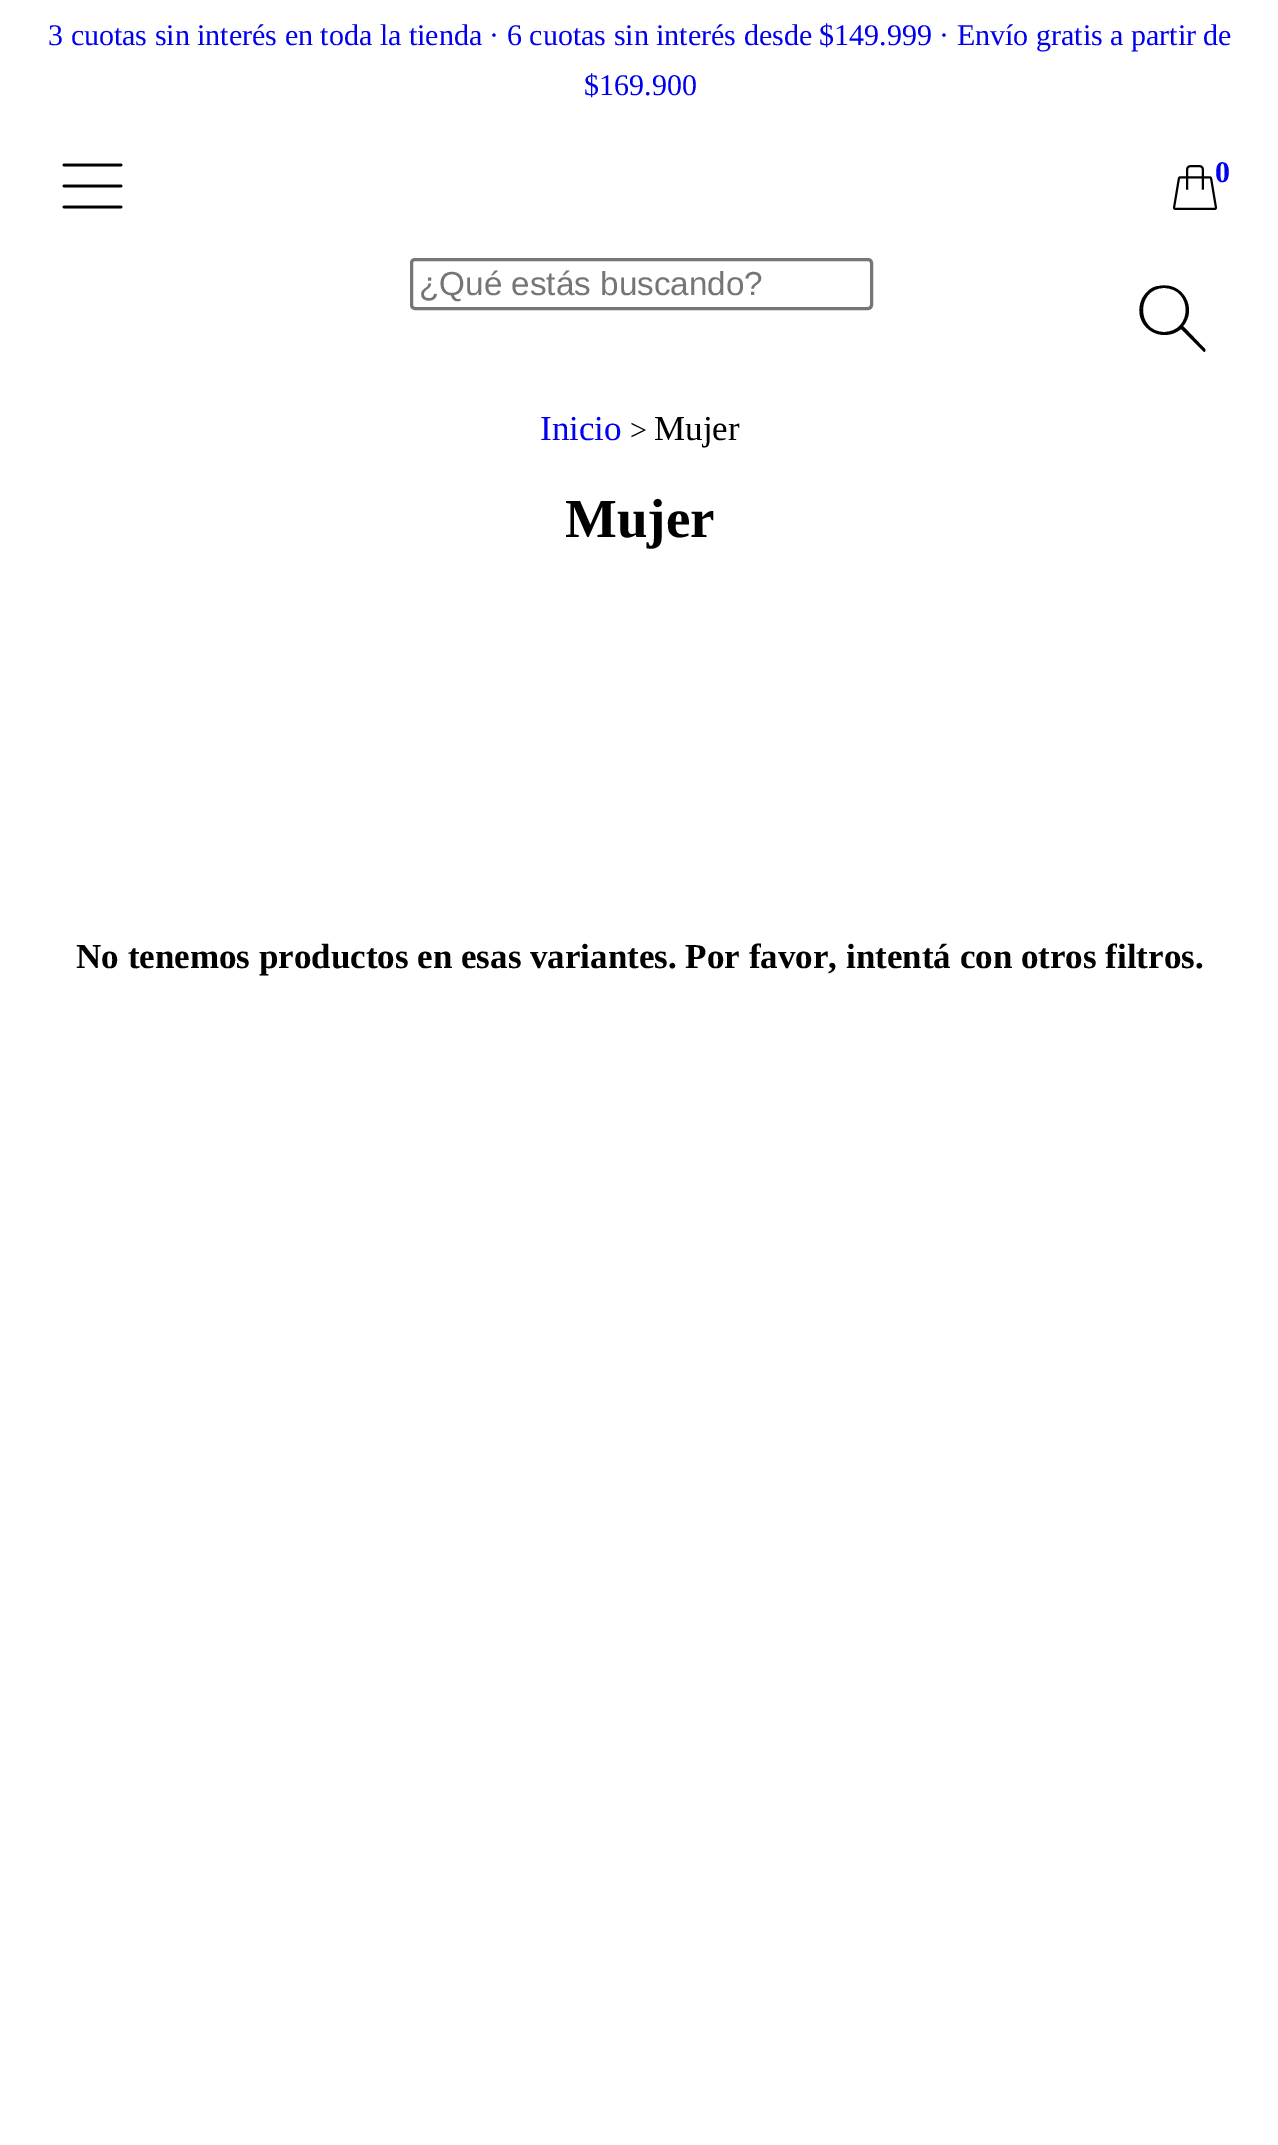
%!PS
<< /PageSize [1278 2145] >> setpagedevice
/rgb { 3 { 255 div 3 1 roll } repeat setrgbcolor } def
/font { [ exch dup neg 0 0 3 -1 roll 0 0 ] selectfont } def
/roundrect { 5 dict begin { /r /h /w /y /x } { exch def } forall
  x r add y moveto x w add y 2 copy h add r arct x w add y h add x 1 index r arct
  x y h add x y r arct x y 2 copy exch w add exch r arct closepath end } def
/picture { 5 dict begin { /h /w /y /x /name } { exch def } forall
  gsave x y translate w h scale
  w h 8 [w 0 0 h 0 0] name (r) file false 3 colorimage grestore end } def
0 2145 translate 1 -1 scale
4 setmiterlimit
255 255 255 rgb
0 0 1278 2145 rectfill
(img/1.rgb) 62 163 61 46 picture
(img/2.rgb) 1172 165 46 45 picture
118 118 118 rgb
3 setlinewidth
411.5 259.5 460 49 3.5 roundrect stroke
0 0 0 rgb
1205 349 moveto 1206 350 1205 352 1204 352 curveto 1181 329 lineto 1163 344 1135 329 1140 305 curveto 1141 300 1143 296 1147 292 curveto 1150 289 1154 286 1159 286 curveto 1183 281 1198 309 1183 326 curveto closepath 1164 332 moveto 1193 332 1193 288 1164 288 curveto 1136 288 1136 332 1164 332 curveto closepath fill
/LiberationSerif-Regular 30 font
0 0 238 rgb
48 45 moveto (3 cuotas sin interés en toda la tienda · 6 cuotas sin interés desde $149.999 · Envío gratis a partir de) show
584 95 moveto ($169.900) show
/LiberationSerif-Bold 30 font
1215 182 moveto (0) show
/LiberationSans-Regular 33.25 font
117 117 117 rgb
419 295 moveto (¿Qué estás buscando?) show
/LiberationSerif-Regular 35 font
0 0 238 rgb
540 440 moveto (Inicio) show
/LiberationSerif-Regular 30 font
0 0 0 rgb
630 440 moveto (>) show
/LiberationSerif-Regular 35 font
654 440 moveto (Mujer) show
/LiberationSerif-Bold 55 font
565 537 moveto (Mujer) show
/LiberationSerif-Bold 35 font
76 968 moveto (No tenemos productos en esas variantes. Por favor, intentá con otros filtros.) show
showpage
